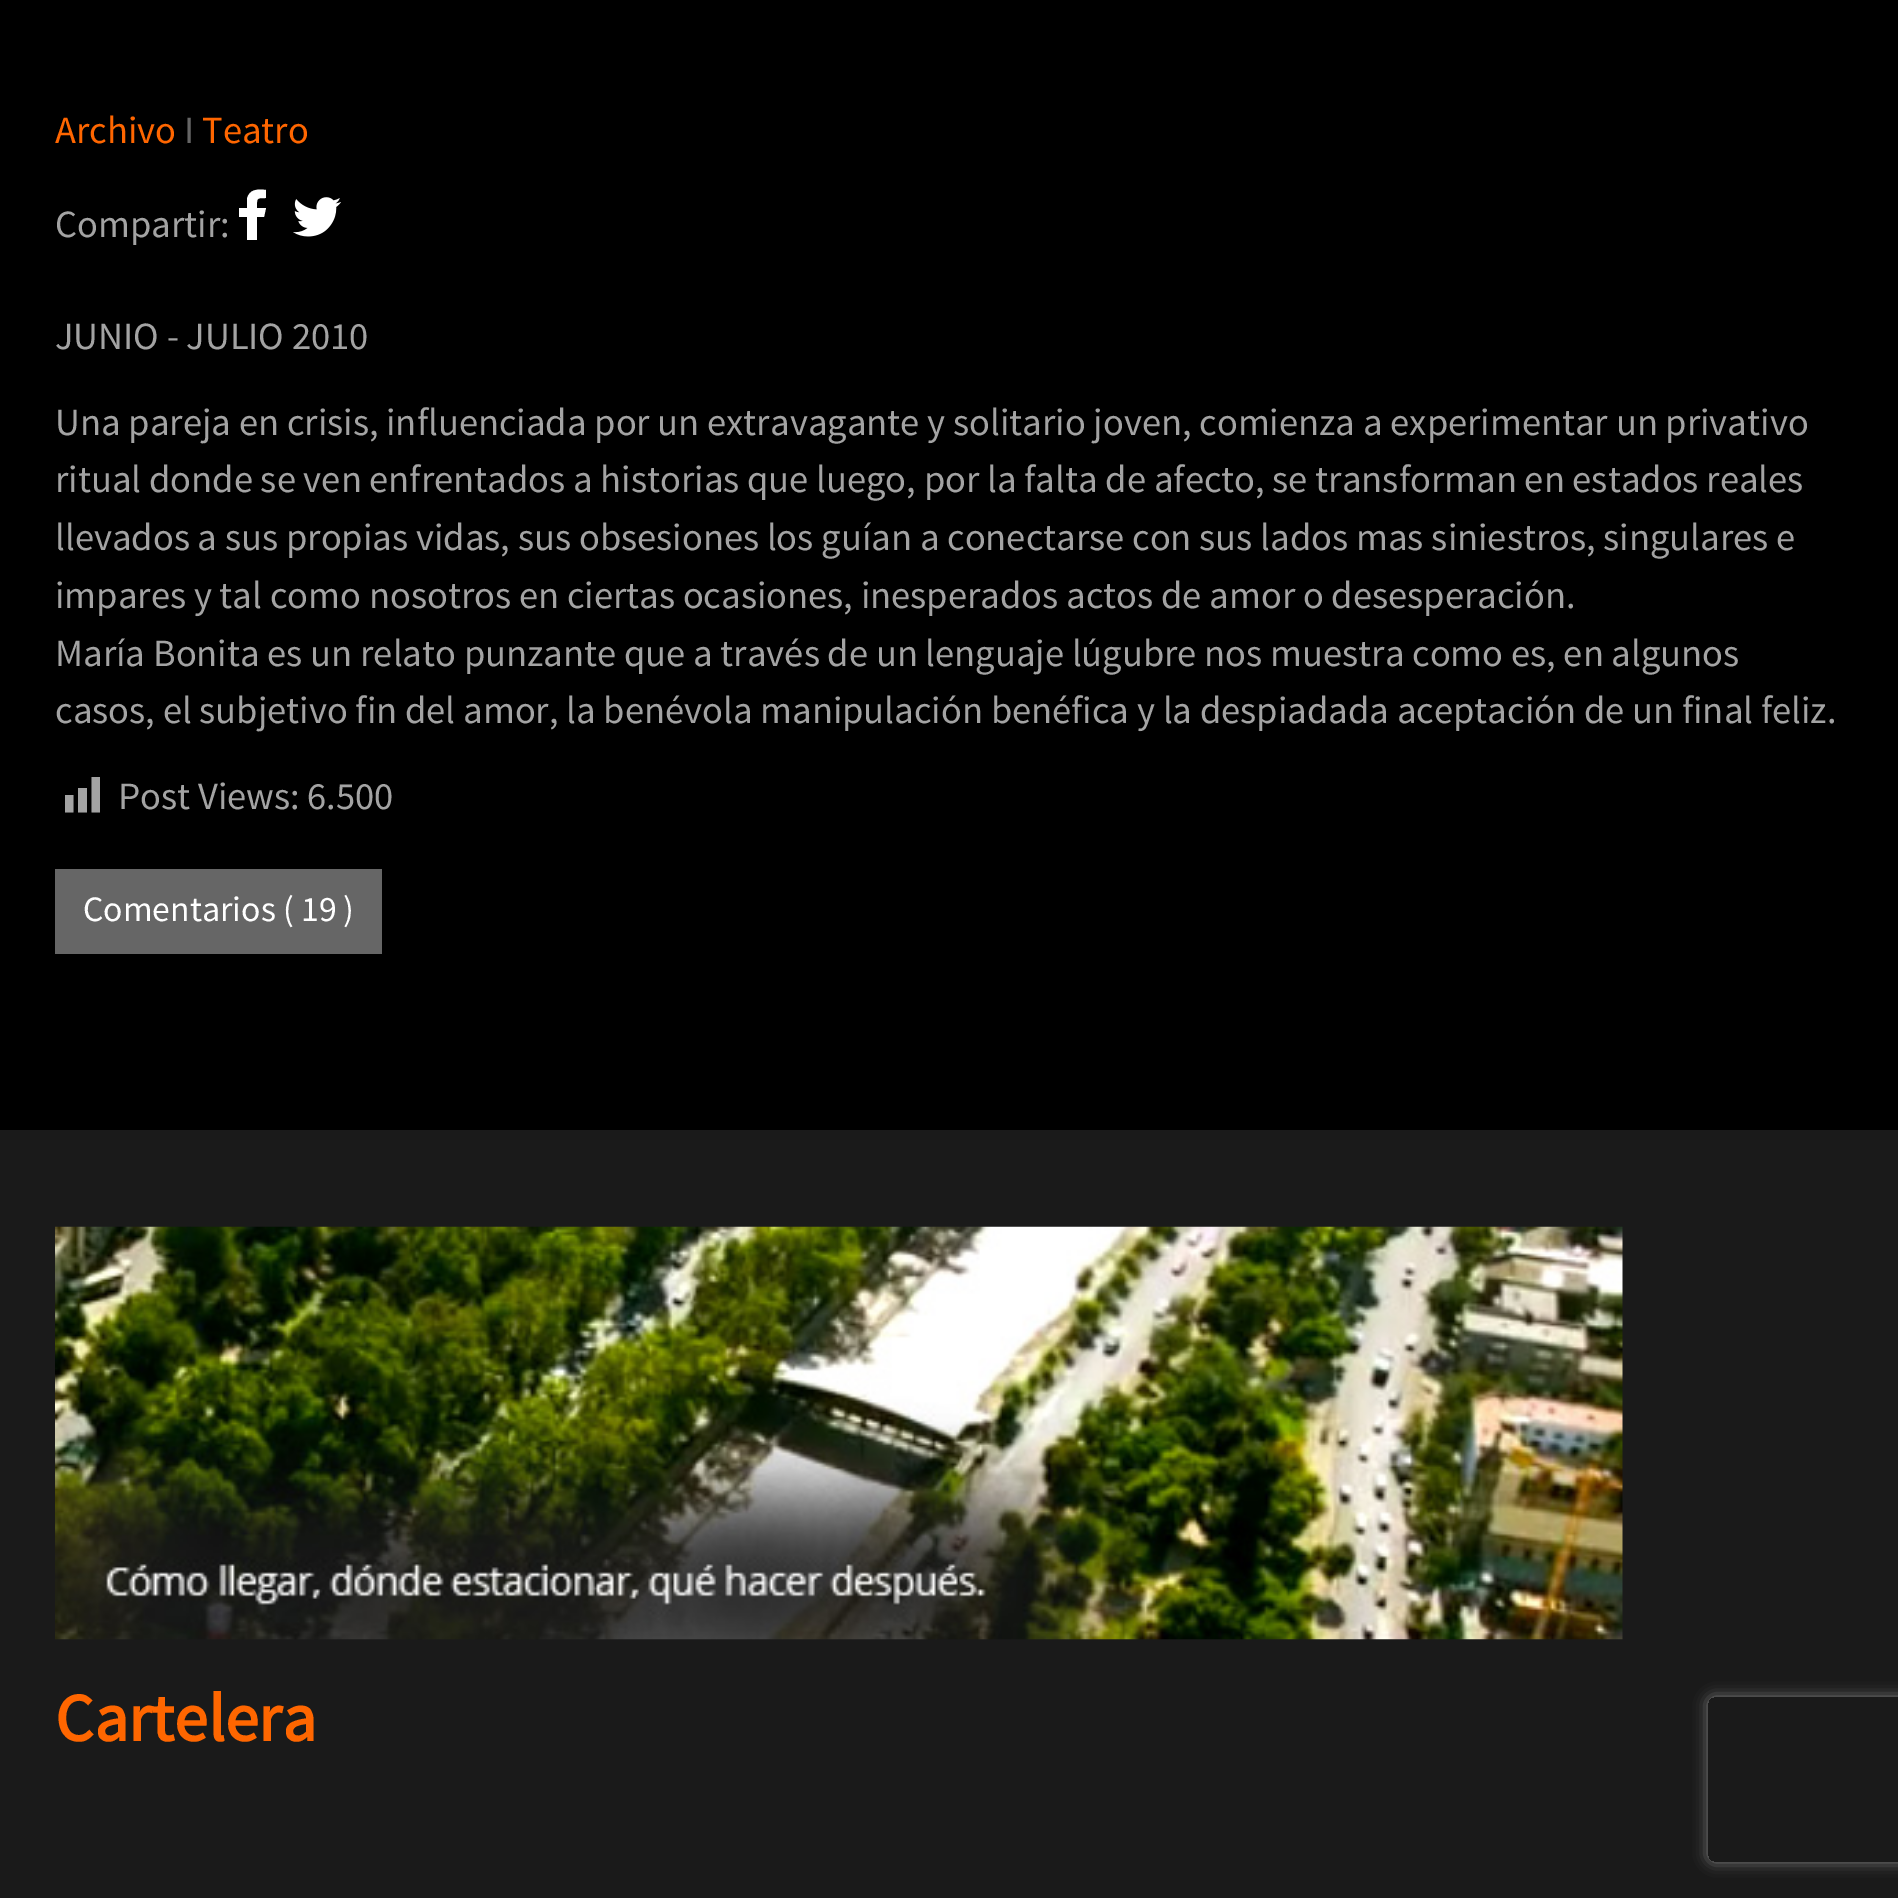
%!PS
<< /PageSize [1898 1898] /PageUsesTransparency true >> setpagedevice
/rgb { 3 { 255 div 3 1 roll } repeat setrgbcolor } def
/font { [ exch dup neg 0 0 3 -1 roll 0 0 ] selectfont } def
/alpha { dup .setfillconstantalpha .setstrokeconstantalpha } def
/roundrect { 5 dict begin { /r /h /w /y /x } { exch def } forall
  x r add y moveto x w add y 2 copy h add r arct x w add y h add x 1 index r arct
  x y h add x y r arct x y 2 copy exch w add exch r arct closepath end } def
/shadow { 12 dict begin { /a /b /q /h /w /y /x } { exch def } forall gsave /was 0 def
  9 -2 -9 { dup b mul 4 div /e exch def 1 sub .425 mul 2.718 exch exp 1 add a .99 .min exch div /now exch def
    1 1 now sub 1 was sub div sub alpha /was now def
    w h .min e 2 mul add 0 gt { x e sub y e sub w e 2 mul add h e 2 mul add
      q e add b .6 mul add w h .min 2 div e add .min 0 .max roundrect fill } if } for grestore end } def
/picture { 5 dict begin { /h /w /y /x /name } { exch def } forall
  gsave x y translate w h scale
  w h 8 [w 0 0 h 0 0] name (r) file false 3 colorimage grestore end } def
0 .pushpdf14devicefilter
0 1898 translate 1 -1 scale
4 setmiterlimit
0 0 0 rgb
0 0 1898 1898 rectfill
255 255 255 rgb
266 190 moveto 266 198 lineto 256 198 257 198 257 208 curveto 266 208 lineto 264 217 lineto 257 217 lineto 257 240 lineto 247 240 lineto 247 217 lineto 239 217 lineto 239 208 lineto 247 208 lineto 247 199 lineto 249 189 258 189 266 190 curveto closepath fill
(img/1.rgb) 293 197 48 40 picture
163 163 163 rgb
100 812.5 moveto 100 777 lineto 91.5 777 lineto 91.5 812.5 lineto closepath 87 812.5 moveto 87 788 lineto 78 788 lineto 78 812.5 lineto closepath 73.5 812.5 moveto 73.5 795 lineto 65 795 lineto 65 812.5 lineto closepath fill
102 102 102 rgb
55 869 327 85 rectfill
26 26 26 rgb
0 1130 1898 768 rectfill
(img/2.rgb) 55 1226 1568 414 picture
gsave
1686 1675 moveto 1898 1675 lineto 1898 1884 lineto 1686 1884 lineto closepath 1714 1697 moveto 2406 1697 lineto 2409.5 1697 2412 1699.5 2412 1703 curveto 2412 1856 lineto 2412 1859.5 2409.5 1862 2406 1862 curveto 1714 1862 lineto 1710.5 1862 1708 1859.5 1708 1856 curveto 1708 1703 lineto 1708 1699.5 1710.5 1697 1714 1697 curveto closepath eoclip newpath
128 128 128 rgb
1708 1697 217 165 6 7 1 shadow
grestore
/SourceSansPro-Regular 38.5 font
255 102 0 rgb
55 143 moveto (Archivo) show
102 102 102 rgb
184 143 moveto (I) show
255 102 0 rgb
202 143 moveto (Teatro) show
163 163 163 rgb
[
  [(Compartir:) 55 237]
  [(JUNIO - JULIO 2010) 55 349]
  [(Una pareja en crisis, influenciada por un extravagante y solitario joven, comienza a experimentar un privativo) 55 435]
  [(ritual donde se ven enfrentados a historias que luego, por la falta de afecto, se transforman en estados reales) 55 492]
  [(llevados a sus propias vidas, sus obsesiones los guían a conectarse con sus lados mas siniestros, singulares e) 55 550]
  [(impares y tal como nosotros en ciertas ocasiones, inesperados actos de amor o desesperación.) 55 608]
  [(María Bonita es un relato punzante que a través de un lenguaje lúgubre nos muestra como es, en algunos) 55 666]
  [(casos, el subjetivo fin del amor, la benévola manipulación benéfica y la despiadada aceptación de un final feliz.) 55 723]
  [(Post Views: 6.500) 118 809]
] { aload pop moveto show } forall
/SourceSansPro-Regular 35.75 font
255 255 255 rgb
83 921 moveto (Comentarios \( 19 \)) show
/SourceSansPro-Bold 67.5 font
255 102 0 rgb
55 1741 moveto (Cartelera) show
.poppdf14devicefilter showpage
